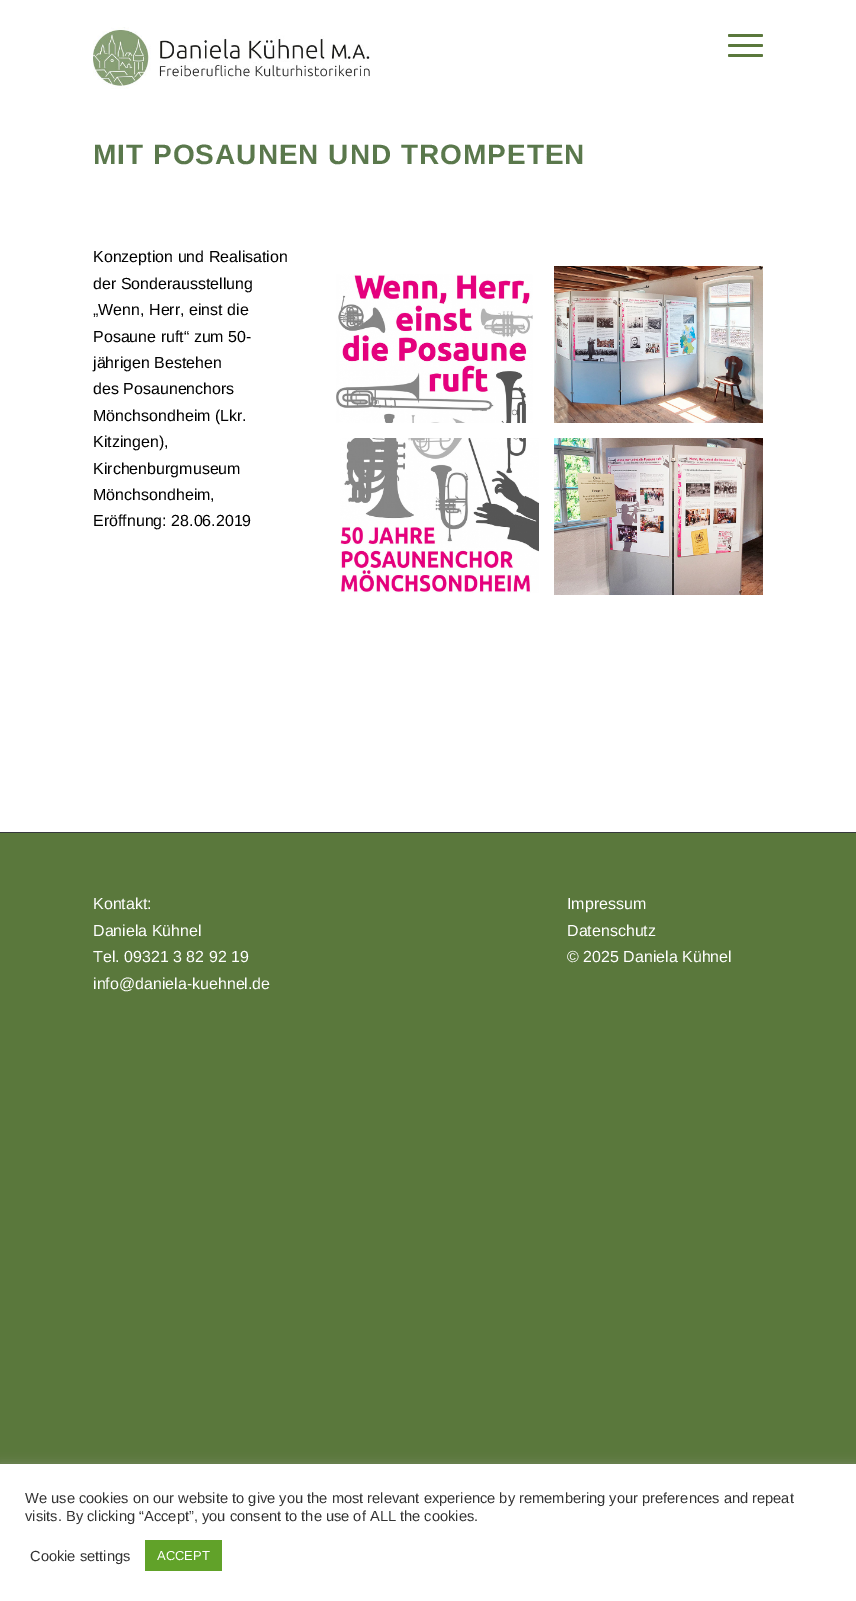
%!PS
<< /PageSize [856 1601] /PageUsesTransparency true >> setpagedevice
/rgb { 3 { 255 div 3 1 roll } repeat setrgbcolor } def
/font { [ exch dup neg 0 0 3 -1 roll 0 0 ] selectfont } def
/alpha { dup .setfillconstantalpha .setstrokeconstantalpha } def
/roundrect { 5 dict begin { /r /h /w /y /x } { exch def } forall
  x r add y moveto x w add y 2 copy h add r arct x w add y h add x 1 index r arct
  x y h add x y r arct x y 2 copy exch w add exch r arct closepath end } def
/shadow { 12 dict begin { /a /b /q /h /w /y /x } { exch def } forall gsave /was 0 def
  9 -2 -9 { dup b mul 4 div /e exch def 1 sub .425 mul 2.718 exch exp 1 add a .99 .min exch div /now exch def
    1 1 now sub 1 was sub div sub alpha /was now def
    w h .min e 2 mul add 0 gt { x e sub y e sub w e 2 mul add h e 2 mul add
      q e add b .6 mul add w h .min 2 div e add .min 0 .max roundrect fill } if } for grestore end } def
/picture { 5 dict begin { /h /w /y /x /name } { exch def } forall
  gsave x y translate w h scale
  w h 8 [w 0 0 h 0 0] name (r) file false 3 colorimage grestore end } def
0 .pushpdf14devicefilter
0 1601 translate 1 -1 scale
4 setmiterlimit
90 120 60 rgb
0 0 856 1601 rectfill
255 255 255 rgb
0 0 856 832 rectfill
(img/1.rgb) 93 27 277 62 picture
90 120 60 rgb
728 44 35 3 1.5 roundrect fill
728 34 35 3 1.5 roundrect fill
728 54 35 3 1.5 roundrect fill
(img/2.rgb) 336 274 197 149 picture
(img/3.rgb) 554 266 209 157 picture
(img/4.rgb) 340 438 199 155 picture
(img/5.rgb) 554 438 209 157 picture
53 56 60 rgb
0 832 856 1 rectfill
172 171 171 rgb
0 1463 856 137 0 5 0.3 shadow
255 255 255 rgb
0 1464 856 137 rectfill
97 162 41 rgb
145 1540 77 31 rectfill
/LiberationSans-Bold 28 font
90 120 76 rgb
93 164 moveto 1 0 (MIT POSAUNEN UND TROMPETEN) ashow
/LiberationSans-Regular 16 font
0 0 0 rgb
[
  [(Konzeption und Realisation) 93 262]
  [(der Sonderausstellung) 93 289]
  [(„Wenn, Herr, einst die) 93 315]
  [(Posaune ruft“ zum 50-) 93 342]
  [(jährigen Bestehen) 93 368]
  [(des Posaunenchors) 93 394]
  [(Mönchsondheim \(Lkr.) 93 421]
  [(Kitzingen\),) 93 447]
  [(Kirchenburgmuseum) 93 474]
  [(Mönchsondheim,) 93 500]
  [(Eröffnung: 28.06.2019) 93 526]
] { aload pop moveto show } forall
255 255 255 rgb
[
  [(Kontakt:) 93 909]
  [(Daniela Kühnel) 93 936]
  [(Tel. 09321 3 82 92 19) 93 962]
  [(info@daniela-kuehnel.de) 93 989]
  [(Impressum) 567 909]
  [(Datenschutz) 567 936]
] { aload pop moveto show } forall
gsave
567 878 196 106 rectclip
567 962 moveto (© 2025 Daniela Kühnel) show
grestore
/LiberationSans-Regular 14.67 font
51 51 51 rgb
[
  [(We use cookies on our website to give you the most relevant experience by remembering your preferences and repeat) 25 1503]
  [(visits. By clicking “Accept”, you consent to the use of ALL the cookies.) 25 1521]
  [(Cookie settings) 30 1561]
] { aload pop moveto show } forall
/LiberationSans-Regular 13 font
255 255 255 rgb
157 1560 moveto (ACCEPT) show
.poppdf14devicefilter showpage
